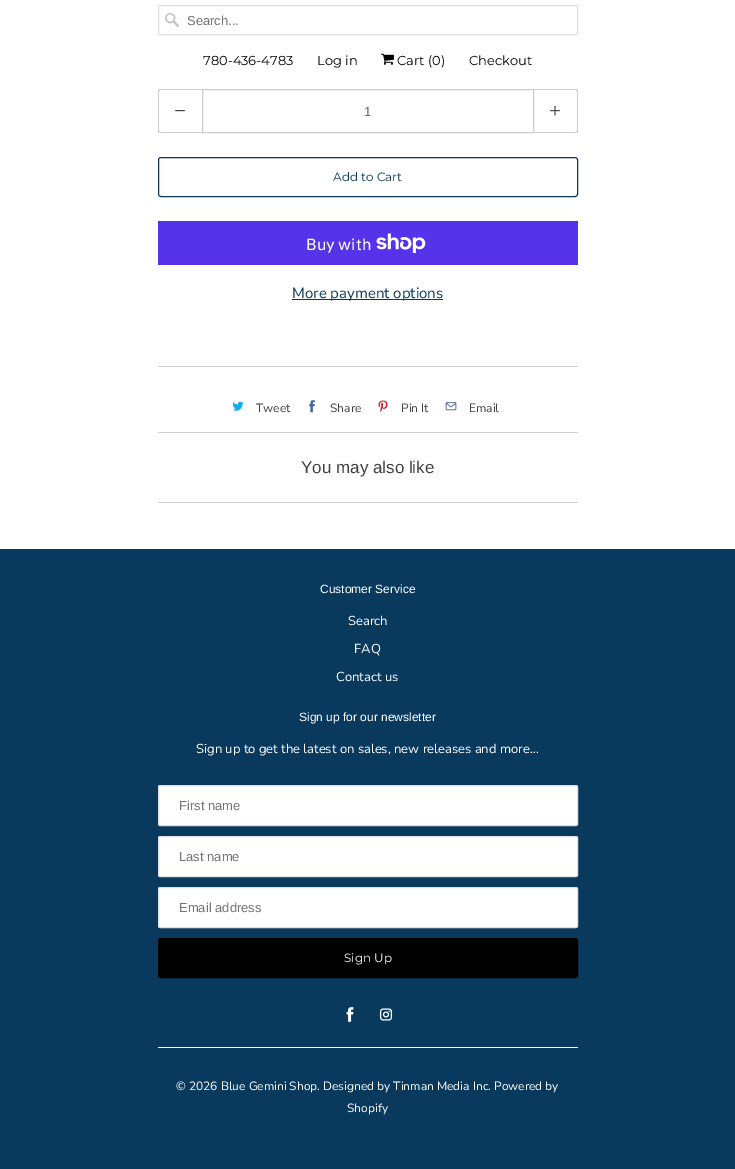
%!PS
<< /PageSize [735 1169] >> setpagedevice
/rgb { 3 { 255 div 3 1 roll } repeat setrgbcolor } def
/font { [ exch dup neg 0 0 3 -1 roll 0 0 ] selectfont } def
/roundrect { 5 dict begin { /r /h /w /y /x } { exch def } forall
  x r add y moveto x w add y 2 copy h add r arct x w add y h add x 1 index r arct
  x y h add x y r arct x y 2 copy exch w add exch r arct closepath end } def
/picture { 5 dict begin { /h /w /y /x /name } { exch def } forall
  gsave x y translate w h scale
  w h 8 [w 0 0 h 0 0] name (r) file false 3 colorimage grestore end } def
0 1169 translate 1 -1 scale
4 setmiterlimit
255 255 255 rgb
0 0 735 1169 rectfill
(img/1.rgb) 165 13 14 14 picture
223 223 223 rgb
158.5 5.5 419 29 1.5 roundrect stroke
(img/2.rgb) 381 53 13 12 picture
205 205 205 rgb
161 89 moveto 202 89 lineto 202 133 lineto 161 133 lineto 159 133 158 132 158 130 curveto 158 92 lineto 158 90 159 89 161 89 curveto closepath 161 90 moveto 202 90 lineto 202 132 lineto 161 132 lineto 160 132 159 131 159 130 curveto 159 92 lineto 159 91 160 90 161 90 curveto closepath eofill
(img/3.rgb) 175 110 10 2 picture
202.5 89.5 331 43 rectstroke
534 89 moveto 575 89 lineto 577 89 578 90 578 92 curveto 578 130 lineto 578 132 577 133 575 133 curveto 534 133 lineto closepath 534 90 moveto 575 90 lineto 576 90 577 91 577 92 curveto 577 130 lineto 577 131 576 132 575 132 curveto 534 132 lineto closepath eofill
(img/4.rgb) 550 105 10 11 picture
9 58 94 rgb
158.5 157.5 419 39 2.5 roundrect stroke
84 51 235 rgb
158 221 420 44 rectfill
(img/5.rgb) 376 233 50 20 picture
9 58 94 rgb
292 299 151 1 rectfill
205 205 205 rgb
158 366 420 1 rectfill
(img/6.rgb) 232 401 12 10 picture
(img/7.rgb) 309 400 6 13 picture
(img/8.rgb) 378 400 10 12 picture
(img/9.rgb) 445 402 12 9 picture
[
  [158 432 420 1 205 205 205]
  [158 502 420 1 205 205 205]
  [0 549 735 620 9 58 94]
] { aload pop rgb rectfill } forall
255 255 255 rgb
158.5 785.5 419 40 1.5 roundrect gsave fill grestore
223 223 223 rgb
stroke
255 255 255 rgb
158.5 836.5 419 40 1.5 roundrect gsave fill grestore
223 223 223 rgb
stroke
255 255 255 rgb
158.5 887.5 419 40 1.5 roundrect gsave fill grestore
223 223 223 rgb
stroke
0 0 0 rgb
158.5 938.5 419 39 2.5 roundrect gsave fill grestore
stroke
(img/10.rgb) 346 1007 8 15 picture
(img/11.rgb) 379 1008 14 13 picture
255 255 255 rgb
158 1047 420 1 rectfill
/LiberationSans-Regular 13 font
117 117 117 rgb
187 25 moveto (Search...) show
/Montserrat-Regular 13 font
0 0 0 rgb
[
  [(780-436-4783) 203 65]
  [(Log in) 317 65]
  [(Cart \(0\)) 397 65]
  [(Checkout) 469 65]
] { aload pop moveto show } forall
/LiberationSans-Regular 13 font
95 106 125 rgb
364 116 moveto (1) show
/Montserrat-Regular 12 font
9 58 94 rgb
333 181 moveto (Add to Cart) show
/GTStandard-Regular 16 font
255 255 255 rgb
306 250 moveto (Buy with) show
/NunitoSans-Regular 15 font
9 58 94 rgb
292 298 moveto (More payment options) show
/NunitoSans-Regular 12 font
64 64 64 rgb
[
  [(Tweet) 256 412]
  [(Share) 330 412]
  [(Pin It) 401 412]
  [(Email) 469 412]
] { aload pop moveto show } forall
/LiberationSans-Regular 17 font
301 473 moveto (You may also like) show
/LiberationSans-Regular 12 font
255 255 255 rgb
320 593 moveto (Customer Service) show
/NunitoSans-Regular 13 font
[
  [(Search) 348 625]
  [(FAQ) 354 653]
  [(Contact us) 336 681]
] { aload pop moveto show } forall
/LiberationSans-Regular 12 font
299 721 moveto (Sign up for our newsletter) show
/NunitoSans-Regular 13 font
196 753 moveto (Sign up to get the latest on sales, new releases and more…) show
/LiberationSans-Regular 13 font
117 117 117 rgb
[
  [(First name) 179 810]
  [(Last name) 179 861]
  [(Email address) 179 912]
] { aload pop moveto show } forall
/Montserrat-Regular 12 font
255 255 255 rgb
344 962 moveto (Sign Up) show
/NunitoSans-Regular 12 font
176 1090 moveto (© 2026 Blue Gemini Shop. Designed by Tinman Media Inc. Powered by) show
347 1112 moveto (Shopify) show
showpage
